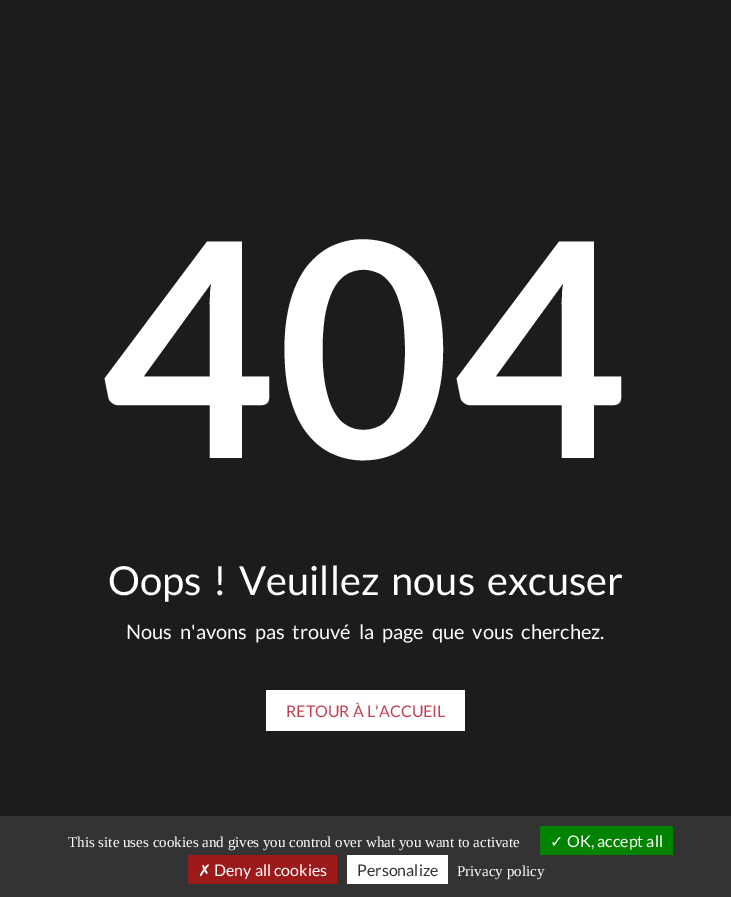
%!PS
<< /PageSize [731 897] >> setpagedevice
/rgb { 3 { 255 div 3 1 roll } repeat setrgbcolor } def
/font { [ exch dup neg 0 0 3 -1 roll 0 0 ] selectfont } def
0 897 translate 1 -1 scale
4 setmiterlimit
28 28 28 rgb
0 0 731 897 rectfill
[
  [266 690 199 41 255 255 255]
  [0 816 731 81 51 51 51]
  [540 826 133 29 0 131 0]
  [188 855 149 29 156 26 26]
  [347 855 101 29 255 255 255]
] { aload pop rgb rectfill } forall
/Lato-Bold 300 font
101 458 moveto 2 0 (404) ashow
/Lato-Regular 40 font
108 595 moveto 4 0 32 (Oops ! Veuillez nous excuser) widthshow
/Lato-Regular 20 font
126 639 moveto 4 0 32 (Nous n'avons pas trouvé la page que vous cherchez.) widthshow
/Lato-Regular 16 font
193 66 81 rgb
286 717 moveto (RETOUR À L'ACCUEIL) show
/LiberationSerif-Regular 15 font
255 255 255 rgb
68 847 moveto (This site uses cookies and gives you control over what you want to activate) show
/DejaVuSans-Regular 16 font
550 847 moveto (✓) show
/Lato-Regular 16 font
567 847 moveto (OK, accept all) show
/DejaVuSans-Regular 16 font
198 876 moveto (✗) show
/Lato-Regular 16 font
214 876 moveto (Deny all cookies) show
51 51 51 rgb
357 876 moveto (Personalize) show
/LiberationSerif-Regular 15 font
255 255 255 rgb
457 876 moveto (Privacy policy) show
showpage
